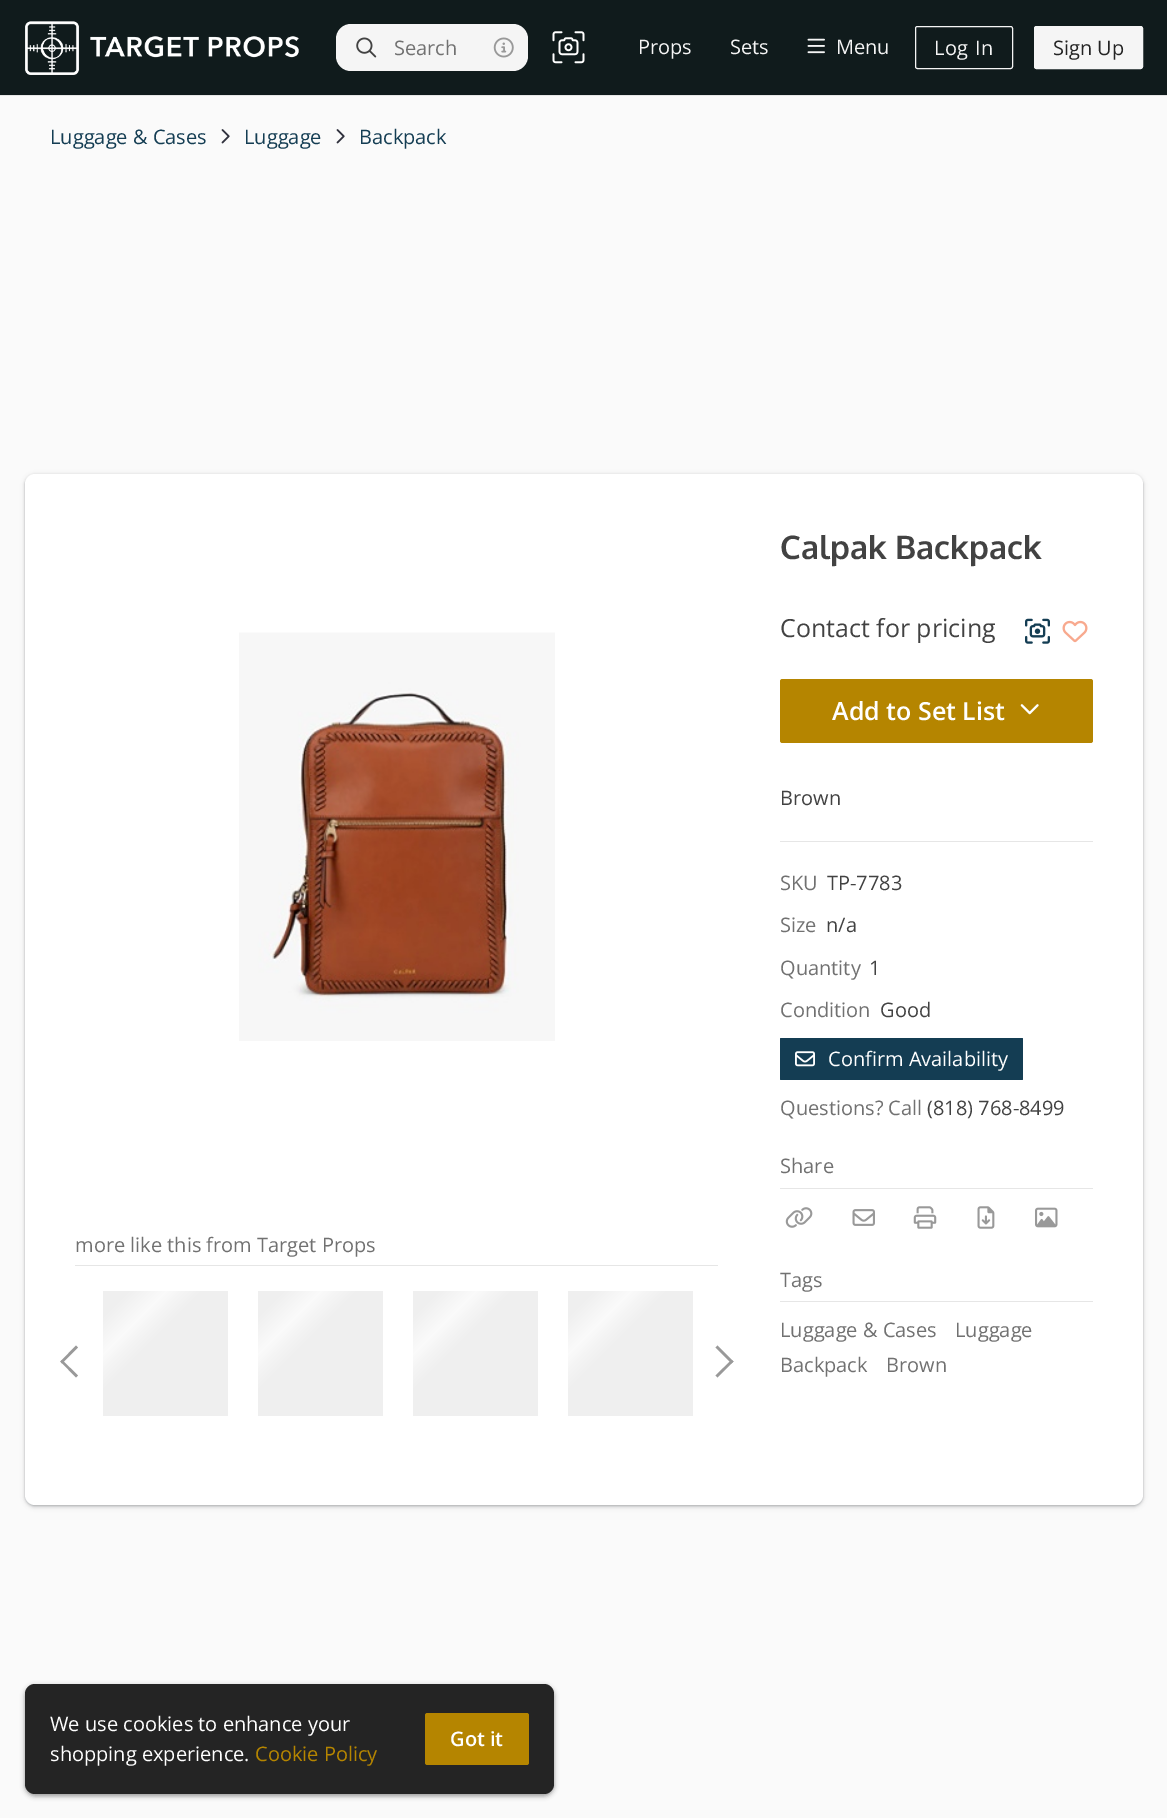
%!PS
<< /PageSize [1167 1818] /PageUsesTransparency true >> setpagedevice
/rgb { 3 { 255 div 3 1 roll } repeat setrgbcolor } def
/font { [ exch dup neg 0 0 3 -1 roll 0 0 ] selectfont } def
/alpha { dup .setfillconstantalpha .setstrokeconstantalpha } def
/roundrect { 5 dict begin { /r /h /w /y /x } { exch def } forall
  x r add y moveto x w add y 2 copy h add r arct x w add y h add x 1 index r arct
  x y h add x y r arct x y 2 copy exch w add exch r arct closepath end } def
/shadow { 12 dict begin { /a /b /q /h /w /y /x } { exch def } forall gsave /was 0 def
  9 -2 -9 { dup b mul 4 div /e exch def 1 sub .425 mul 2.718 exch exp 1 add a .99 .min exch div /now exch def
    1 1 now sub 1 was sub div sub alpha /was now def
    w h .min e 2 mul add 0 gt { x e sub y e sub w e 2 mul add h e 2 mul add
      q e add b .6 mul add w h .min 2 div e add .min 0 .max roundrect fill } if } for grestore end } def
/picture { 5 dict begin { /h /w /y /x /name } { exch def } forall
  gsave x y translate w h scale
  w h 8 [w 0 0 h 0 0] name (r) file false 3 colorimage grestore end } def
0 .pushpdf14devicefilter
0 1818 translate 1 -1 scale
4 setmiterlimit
250 250 250 rgb
0 0 1167 1818 rectfill
16 27 28 rgb
0 0 1167 95 rectfill
(img/1.rgb) 25 21 274 54 picture
245 245 245 rgb
336 24 192 47 15 roundrect fill
(img/2.rgb) 356 37 21 21 picture
(img/3.rgb) 493 37 21 21 picture
(img/4.rgb) 552 31 33 33 picture
(img/5.rgb) 807 38 18 16 picture
915.5 26.5 97 42 2 roundrect stroke
1034.5 26.5 108 42 2 roundrect gsave fill grestore
stroke
230 230 230 rgb
0 95 1167 1 rectfill
(img/6.rgb) 221 129 9 15 picture
(img/6.rgb) 336 129 9 15 picture
60 64 67 rgb
24 474 1120 1034 11 2 0.15 shadow
25 475 1118 1031 10 1 0.3 shadow
255 255 255 rgb
25 474 1118 1031 10 roundrect fill
(img/7.rgb) 239 632 316 409 picture
(img/8.rgb) 1025 618 25 26 picture
(img/9.rgb) 1062 620 26 23 picture
181 133 0 rgb
780 679 313 64 2.5 roundrect fill
(img/10.rgb) 1020 704 19 11 picture
230 230 230 rgb
780 841 313 1 rectfill
75 1265 643 1 rectfill
153 153 153 rgb
76 1377.5 moveto 60.5 1361.5 lineto 62 1360 lineto 78 1375.5 lineto closepath fill
62 1363.5 moveto 60.5 1361.5 lineto 76 1345.5 lineto 78 1347.5 lineto closepath fill
gsave 103 1291 moveto 228 1291 lineto 228 1416 lineto 103 1416 lineto closepath clip newpath
<< /ShadingType 2 /ColorSpace /DeviceRGB /Coords [196 1448 9 1260] /Extend [true true] /Function << /FunctionType 3 /Domain [0 1] /Functions [<< /FunctionType 2 /Domain [0 1] /C0 [0.937 0.937 0.937] /C1 [0.937 0.937 0.937] /N 1 >> << /FunctionType 2 /Domain [0 1] /C0 [0.937 0.937 0.937] /C1 [0.98 0.98 0.98] /N 1 >> << /FunctionType 2 /Domain [0 1] /C0 [0.98 0.98 0.98] /C1 [0.937 0.937 0.937] /N 1 >> << /FunctionType 2 /Domain [0 1] /C0 [0.937 0.937 0.937] /C1 [0.937 0.937 0.937] /N 1 >>] /Bounds [0.4 0.5 0.6] /Encode [0 1 0 1 0 1 0 1] >> >> shfill grestore
gsave 258 1291 moveto 383 1291 lineto 383 1416 lineto 258 1416 lineto closepath clip newpath
<< /ShadingType 2 /ColorSpace /DeviceRGB /Coords [351 1448 164 1260] /Extend [true true] /Function << /FunctionType 3 /Domain [0 1] /Functions [<< /FunctionType 2 /Domain [0 1] /C0 [0.937 0.937 0.937] /C1 [0.937 0.937 0.937] /N 1 >> << /FunctionType 2 /Domain [0 1] /C0 [0.937 0.937 0.937] /C1 [0.98 0.98 0.98] /N 1 >> << /FunctionType 2 /Domain [0 1] /C0 [0.98 0.98 0.98] /C1 [0.937 0.937 0.937] /N 1 >> << /FunctionType 2 /Domain [0 1] /C0 [0.937 0.937 0.937] /C1 [0.937 0.937 0.937] /N 1 >>] /Bounds [0.4 0.5 0.6] /Encode [0 1 0 1 0 1 0 1] >> >> shfill grestore
gsave 413 1291 moveto 538 1291 lineto 538 1416 lineto 413 1416 lineto closepath clip newpath
<< /ShadingType 2 /ColorSpace /DeviceRGB /Coords [506 1448 319 1260] /Extend [true true] /Function << /FunctionType 3 /Domain [0 1] /Functions [<< /FunctionType 2 /Domain [0 1] /C0 [0.937 0.937 0.937] /C1 [0.937 0.937 0.937] /N 1 >> << /FunctionType 2 /Domain [0 1] /C0 [0.937 0.937 0.937] /C1 [0.98 0.98 0.98] /N 1 >> << /FunctionType 2 /Domain [0 1] /C0 [0.98 0.98 0.98] /C1 [0.937 0.937 0.937] /N 1 >> << /FunctionType 2 /Domain [0 1] /C0 [0.937 0.937 0.937] /C1 [0.937 0.937 0.937] /N 1 >>] /Bounds [0.4 0.5 0.6] /Encode [0 1 0 1 0 1 0 1] >> >> shfill grestore
gsave 568 1291 moveto 693 1291 lineto 693 1416 lineto 568 1416 lineto closepath clip newpath
<< /ShadingType 2 /ColorSpace /DeviceRGB /Coords [661 1448 474 1260] /Extend [true true] /Function << /FunctionType 3 /Domain [0 1] /Functions [<< /FunctionType 2 /Domain [0 1] /C0 [0.937 0.937 0.937] /C1 [0.937 0.937 0.937] /N 1 >> << /FunctionType 2 /Domain [0 1] /C0 [0.937 0.937 0.937] /C1 [0.98 0.98 0.98] /N 1 >> << /FunctionType 2 /Domain [0 1] /C0 [0.98 0.98 0.98] /C1 [0.937 0.937 0.937] /N 1 >> << /FunctionType 2 /Domain [0 1] /C0 [0.937 0.937 0.937] /C1 [0.937 0.937 0.937] /N 1 >>] /Bounds [0.4 0.5 0.6] /Encode [0 1 0 1 0 1 0 1] >> >> shfill grestore
717.5 1345.5 moveto 733.5 1361.5 lineto 731.5 1363.5 lineto 715.5 1347.5 lineto closepath fill
731.5 1360 moveto 733.5 1361.5 lineto 717.5 1377.5 lineto 715.5 1375.5 lineto closepath fill
20 61 83 rgb
780 1038 243 42 1 roundrect fill
(img/11.rgb) 795 1051 20 16 picture
230 230 230 rgb
780 1188 313 1 rectfill
(img/12.rgb) 785 1207 28 21 picture
(img/13.rgb) 852 1209 23 17 picture
(img/14.rgb) 913 1206 24 23 picture
(img/15.rgb) 977 1206 18 23 picture
(img/16.rgb) 1035 1207 23 21 picture
780 1301 313 1 rectfill
50 50 50 rgb
25 1686 529 110 10 2.5 0.5 shadow
36 36 36 rgb
25 1684 529 110 10 roundrect fill
181 133 0 rgb
425 1713 104 52 2.5 roundrect fill
/OpenSans-Regular 20 font
113 113 113 rgb
394 55 moveto (Search) show
245 245 245 rgb
[
  [(Props) 638 54]
  [(Sets) 730 54]
  [(Menu) 836 54]
] { aload pop moveto show } forall
934 55 moveto 0.5 0 (Log In) ashow
36 36 36 rgb
1053 55 moveto (Sign Up) show
20 61 83 rgb
[
  [(Luggage & Cases) 50 144]
  [(Luggage) 244 144]
  [(Backpack) 359 144]
] { aload pop moveto show } forall
/Oxygen-Bold 32.5 font
66 66 66 rgb
780 559 moveto (Calpak Backpack) show
/OpenSans-Regular 25 font
780 637 moveto (Contact for pricing) show
/OpenSans-SemiBold 25 font
255 255 255 rgb
832 720 moveto (Add to Set List) show
/OpenSans-Regular 20 font
66 66 66 rgb
780 805 moveto (Brown) show
113 113 113 rgb
75 1252 moveto (more like this from Target Props) show
780 890 moveto (SKU) show
66 66 66 rgb
827 890 moveto (TP-7783) show
113 113 113 rgb
780 932 moveto (Size) show
66 66 66 rgb
826 932 moveto (n/a) show
113 113 113 rgb
780 975 moveto (Quantity) show
66 66 66 rgb
869 975 moveto (1) show
113 113 113 rgb
780 1017 moveto (Condition) show
66 66 66 rgb
880 1017 moveto (Good) show
255 255 255 rgb
828 1066 moveto (Confirm Availability) show
113 113 113 rgb
780 1115 moveto (Questions? Call) show
66 66 66 rgb
927 1115 moveto (\(818\) 768-8499) show
113 113 113 rgb
[
  [(Share) 780 1173]
  [(Tags) 780 1287]
  [(Luggage & Cases) 780 1337]
  [(Luggage) 955 1337]
  [(Backpack) 780 1372]
  [(Brown) 886 1372]
] { aload pop moveto show } forall
255 255 255 rgb
50 1731 moveto (We use cookies to enhance your) show
50 1761 moveto (shopping experience.) show
181 133 0 rgb
255 1761 moveto (Cookie Policy) show
/OpenSans-SemiBold 20 font
255 255 255 rgb
450 1746 moveto (Got it) show
.poppdf14devicefilter showpage
